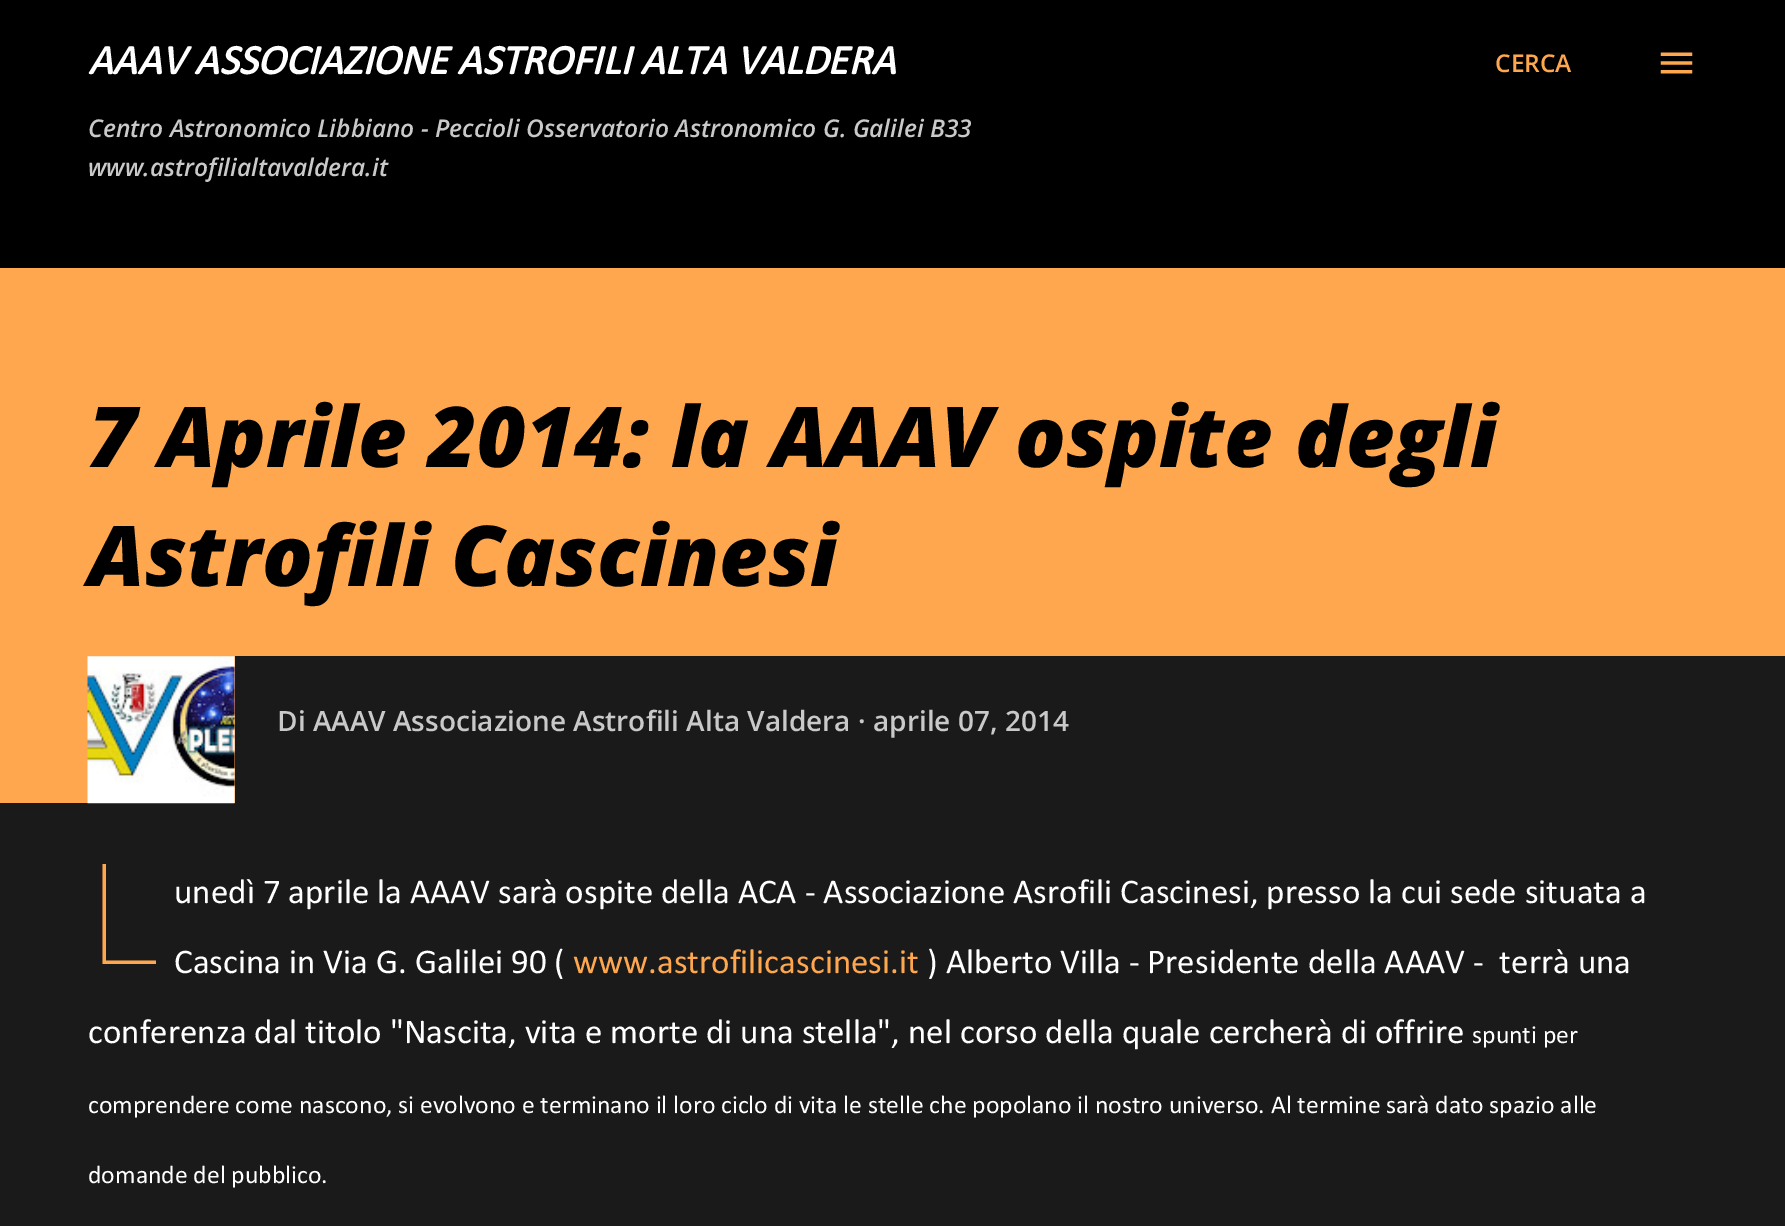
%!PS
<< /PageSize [1785 1226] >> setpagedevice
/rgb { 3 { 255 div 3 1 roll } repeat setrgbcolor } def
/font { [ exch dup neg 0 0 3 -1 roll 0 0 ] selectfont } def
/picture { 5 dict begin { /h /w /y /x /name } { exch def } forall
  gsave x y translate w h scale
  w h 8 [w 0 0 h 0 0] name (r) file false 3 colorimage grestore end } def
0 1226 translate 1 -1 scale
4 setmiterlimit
26 26 26 rgb
0 0 1785 1226 rectfill
0 0 0 rgb
0 0 1785 268 rectfill
(img/1.rgb) 1660 52 33 22 picture
255 167 78 rgb
0 268 1785 388 rectfill
0 656 235 147 rectfill
(img/2.rgb) 87 656 148 148 picture
/Calibri-BoldItalic 42 font
255 255 255 rgb
88 74 moveto (AAAV ASSOCIAZIONE ASTROFILI ALTA VALDERA) show
/OpenSans-SemiBoldItalic 24.5 font
201 201 201 rgb
88 137 moveto (Centro Astronomico Libbiano - Peccioli Osservatorio Astronomico G. Galilei B33) show
88 176 moveto (www.astrofilialtavaldera.it) show
/OpenSans-SemiBold 24.5 font
255 167 78 rgb
1495 72 moveto (CERCA) show
/OpenSans-ExtraBoldItalic 84 font
0 0 0 rgb
88 467 moveto (7 Aprile 2014: la AAAV ospite degli) show
88 586 moveto (Astrofili Cascinesi) show
/OpenSans-SemiBold 28 font
201 201 201 rgb
277 731 moveto (Di AAAV Associazione Astrofili Alta Valdera ·) show
873 731 moveto (aprile 07, 2014) show
/NotoSans-Thin 140 font
255 167 78 rgb
88 964 moveto (L) show
/Calibri-Regular 35 font
255 255 255 rgb
174 903 moveto (unedì 7 aprile la AAAV sarà ospite della ACA - Associazione Asrofili Cascinesi, presso la cui sede situata a) show
174 973 moveto (Cascina in Via G. Galilei 90 \() show
255 167 78 rgb
573 973 moveto (www.astrofilicascinesi.it) show
255 255 255 rgb
927 973 moveto (\) Alberto Villa - Presidente della AAAV -  terrà una) show
88 1043 moveto (conferenza dal titolo "Nascita, vita e morte di una stella", nel corso della quale cercherà di offrire) show
/Calibri-Regular 25.67 font
[
  [(spunti per) 1472 1043]
  [(comprendere come nascono, si evolvono e terminano il loro ciclo di vita le stelle che popolano il nostro universo. Al termine sarà dato spazio alle) 88 1113]
  [(domande del pubblico.) 88 1183]
] { aload pop moveto show } forall
showpage
